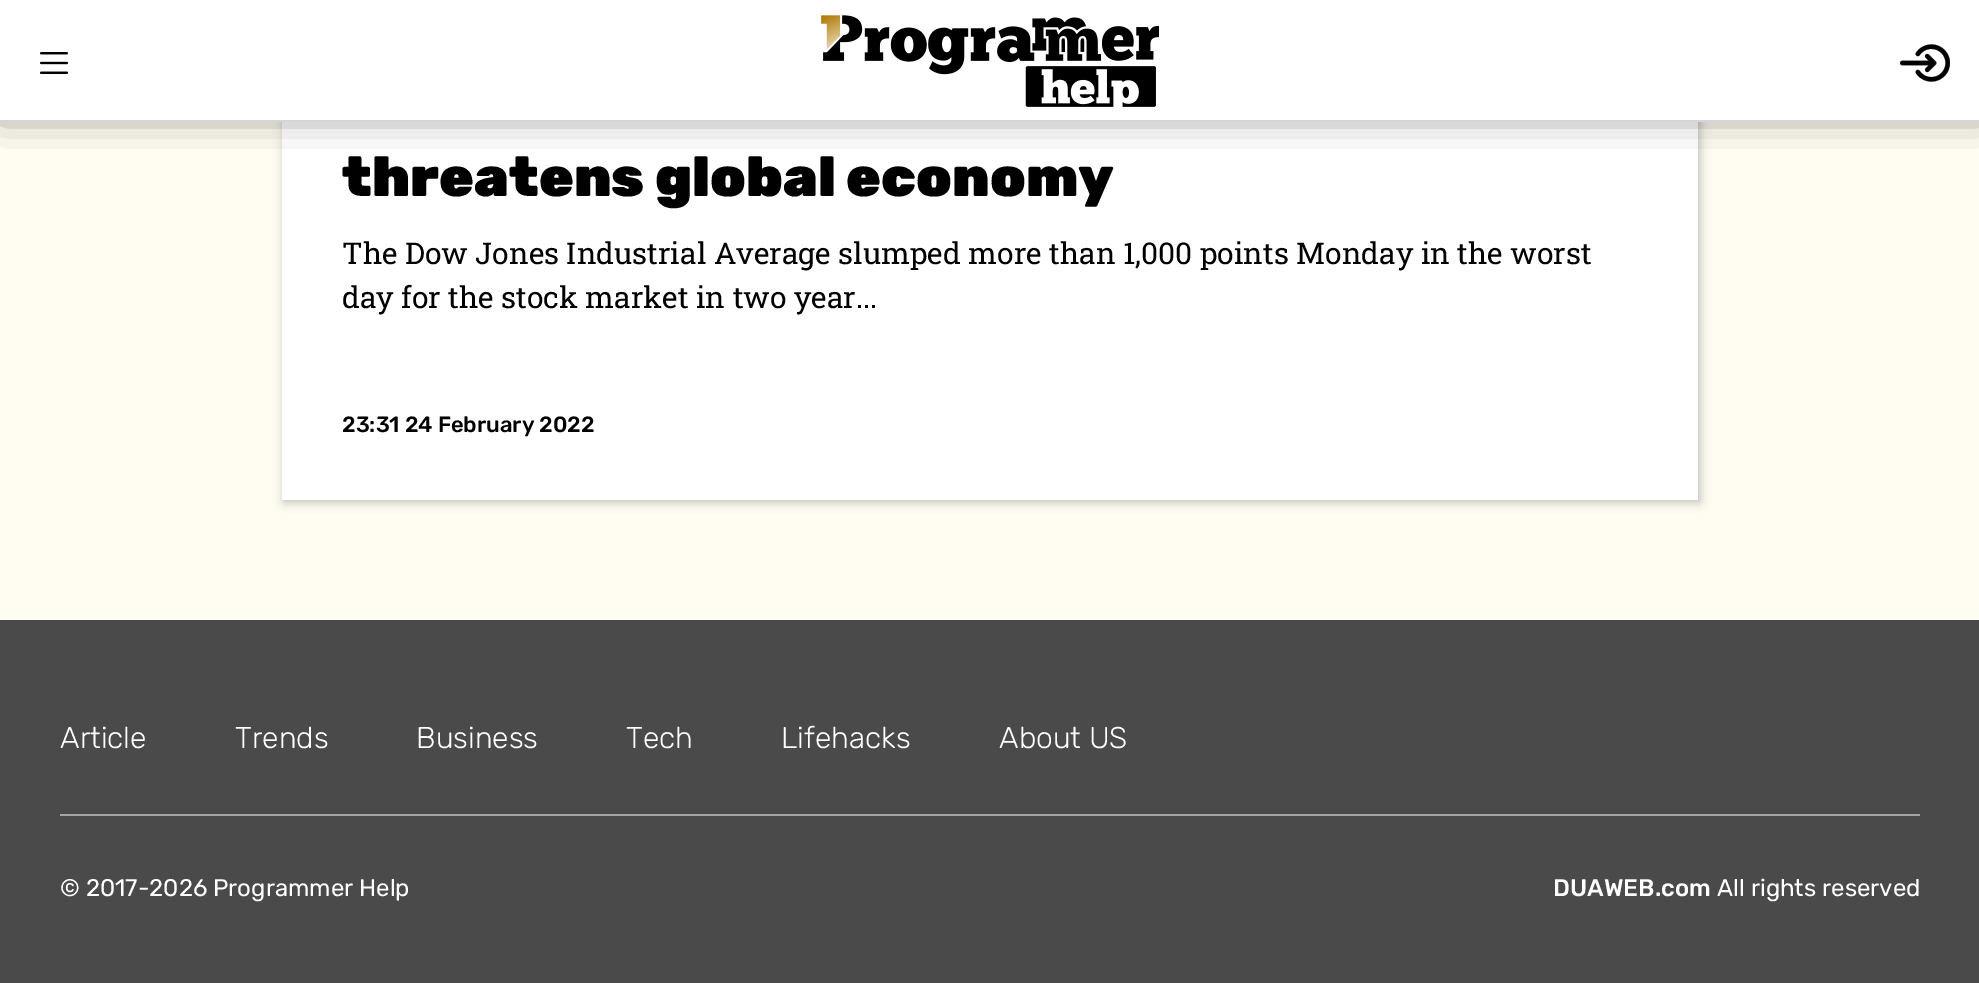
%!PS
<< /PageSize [1979 983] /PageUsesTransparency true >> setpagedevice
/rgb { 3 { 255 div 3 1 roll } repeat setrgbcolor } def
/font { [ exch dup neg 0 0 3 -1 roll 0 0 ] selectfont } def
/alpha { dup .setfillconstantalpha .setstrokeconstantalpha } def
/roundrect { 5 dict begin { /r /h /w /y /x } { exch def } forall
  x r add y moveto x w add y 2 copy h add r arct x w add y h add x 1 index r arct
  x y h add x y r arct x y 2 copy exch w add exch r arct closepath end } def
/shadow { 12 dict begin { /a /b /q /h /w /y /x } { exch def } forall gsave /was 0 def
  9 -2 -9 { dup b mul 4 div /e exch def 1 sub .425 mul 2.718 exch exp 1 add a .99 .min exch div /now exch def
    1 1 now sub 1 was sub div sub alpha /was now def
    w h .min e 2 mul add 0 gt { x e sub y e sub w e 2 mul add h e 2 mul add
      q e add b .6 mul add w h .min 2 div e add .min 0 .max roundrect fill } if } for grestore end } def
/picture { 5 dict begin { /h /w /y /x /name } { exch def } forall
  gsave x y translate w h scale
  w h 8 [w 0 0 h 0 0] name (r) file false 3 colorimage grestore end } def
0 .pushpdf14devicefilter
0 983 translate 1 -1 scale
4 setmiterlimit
255 252 242 rgb
0 0 1979 983 rectfill
0 0 0 rgb
284 -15 1416 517 0 5 0.25 shadow
255 255 255 rgb
282 122 1416 378 rectfill
0 0 0 rgb
2 -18 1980 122 0 20 1 shadow
255 255 255 rgb
0 0 1979 120 rectfill
213 213 213 rgb
0 120 1979 2 rectfill
(img/1.rgb) 40 52 28 22 picture
(img/2.rgb) 821 15 338 92 picture
(img/3.rgb) 1900 44 50 38 picture
74 74 74 rgb
0 620 1979 363 rectfill
165 165 165 rgb
60 814 1860 2 rectfill
/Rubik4-Light 56 font
0 0 0 rgb
342 196 moveto (threatens global economy) show
/RobotoSlab-Regular 30 font
342 264 moveto (The Dow Jones Industrial Average slumped more than 1,000 points Monday in the worst) show
342 308 moveto (day for the stock market in two year...) show
/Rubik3-Light 22 font
342 432 moveto (23:31 24 February 2022) show
/Rubik-Light 30 font
255 255 255 rgb
[
  [(Article) 60 748]
  [(Trends) 235 748]
  [(Business) 416 748]
  [(Tech) 626 748]
  [(Lifehacks) 781 748]
  [(About US) 999 748]
] { aload pop moveto show } forall
/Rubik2-Light 24 font
60 896 moveto (© 2017-2026 Programmer Help) show
/Rubik3-Light 24 font
1553 896 moveto (DUAWEB.com) show
/Rubik2-Light 24 font
1717 896 moveto (All rights reserved) show
.poppdf14devicefilter showpage
